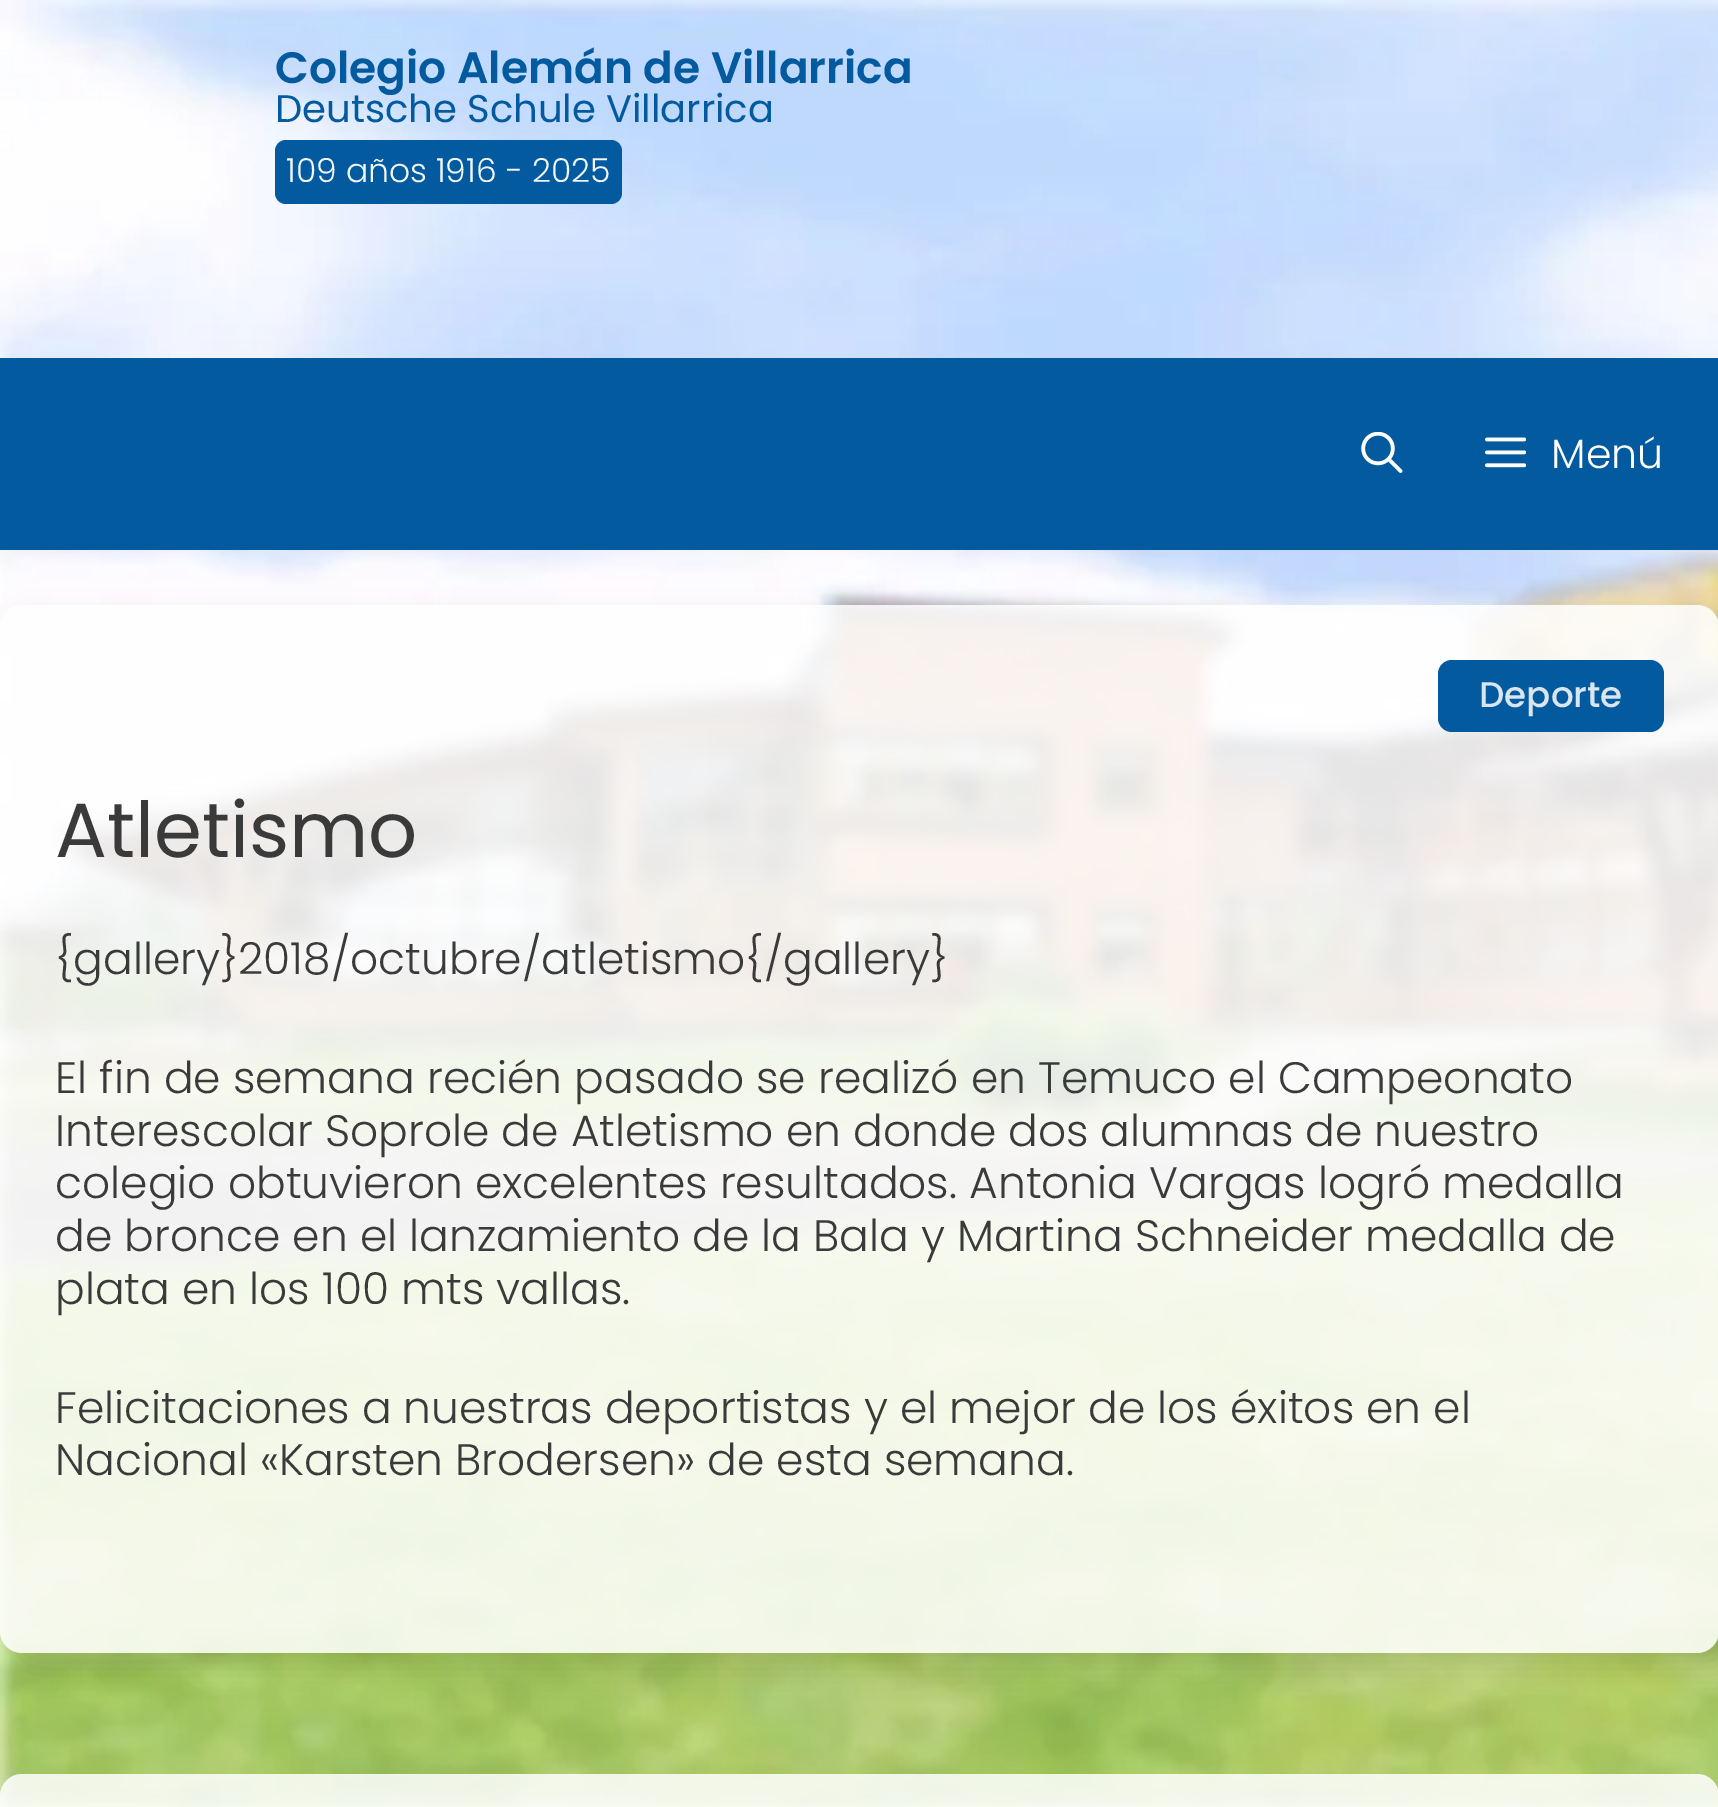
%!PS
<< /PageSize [1718 1807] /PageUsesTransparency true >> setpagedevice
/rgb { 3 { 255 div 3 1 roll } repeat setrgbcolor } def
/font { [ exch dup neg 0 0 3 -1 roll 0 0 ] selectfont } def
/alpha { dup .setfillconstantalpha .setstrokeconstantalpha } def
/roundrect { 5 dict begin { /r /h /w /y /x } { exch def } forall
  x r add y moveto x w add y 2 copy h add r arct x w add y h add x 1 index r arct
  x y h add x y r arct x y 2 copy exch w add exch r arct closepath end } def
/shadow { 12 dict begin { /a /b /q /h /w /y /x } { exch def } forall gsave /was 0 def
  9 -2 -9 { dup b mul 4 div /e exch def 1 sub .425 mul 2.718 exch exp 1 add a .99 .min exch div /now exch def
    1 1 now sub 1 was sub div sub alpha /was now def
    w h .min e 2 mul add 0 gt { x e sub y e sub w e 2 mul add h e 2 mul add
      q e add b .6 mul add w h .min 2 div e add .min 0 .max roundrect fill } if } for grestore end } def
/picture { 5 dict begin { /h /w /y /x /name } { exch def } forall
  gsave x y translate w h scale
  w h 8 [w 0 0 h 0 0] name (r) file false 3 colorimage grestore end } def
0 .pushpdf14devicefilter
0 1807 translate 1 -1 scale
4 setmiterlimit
255 255 255 rgb
0 0 1718 1807 rectfill
(img/1.rgb) 0 0 1718 1807 picture
3 90 158 rgb
275 140 347 64 11 roundrect fill
0 358 1718 192 rectfill
(img/2.rgb) 1361 432 42 41 picture
(img/3.rgb) 1485 437 41 31 picture
gsave
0 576 moveto 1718 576 lineto 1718 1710 lineto 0 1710 lineto closepath 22 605 moveto 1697 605 lineto 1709 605 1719 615 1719 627 curveto 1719 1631 lineto 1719 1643 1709 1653 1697 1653 curveto 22 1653 lineto 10 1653 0 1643 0 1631 curveto 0 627 lineto 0 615 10 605 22 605 curveto closepath eoclip newpath
0 0 0 rgb
14 619 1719 1048 22 14 0.1 shadow
grestore
0.85 alpha
255 255 255 rgb
0 605 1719 1048 22 roundrect fill
1 alpha
3 90 158 rgb
1438 660 226 72 14 roundrect fill
0.85 alpha
255 255 255 rgb
0 1774 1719 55 22 roundrect fill
/Poppins-SemiBold 44 font
1 alpha
3 90 158 rgb
275 83 moveto (Colegio Alemán de Villarrica) show
/Poppins-Regular 38.5 font
275 122 moveto (Deutsche Schule Villarrica) show
/Poppins-Light 33 font
242 247 250 rgb
286 182 moveto (109 años 1916 - 2025) show
/Poppins-Light 41 font
255 255 255 rgb
1551 468 moveto (Menú) show
/Poppins-Medium 35.75 font
217 230 240 rgb
1479 707 moveto (Deporte) show
/Poppins-Regular 77 font
58 58 58 rgb
55 857 moveto (Atletismo) show
/Poppins-Light 44 font
[
  [({gallery}2018/octubre/atletismo{/gallery}) 55 974]
  [(El fin de semana recién pasado se realizó en Temuco el Campeonato) 55 1093]
  [(Interescolar Soprole de Atletismo en donde dos alumnas de nuestro) 55 1146]
  [(colegio obtuvieron excelentes resultados. Antonia Vargas logró medalla) 55 1198]
  [(de bronce en el lanzamiento de la Bala y Martina Schneider medalla de) 55 1251]
  [(plata en los 100 mts vallas.) 55 1304]
  [(Felicitaciones a nuestras deportistas y el mejor de los éxitos en el) 55 1423]
  [(Nacional «Karsten Brodersen» de esta semana.) 55 1475]
] { aload pop moveto show } forall
.poppdf14devicefilter showpage
